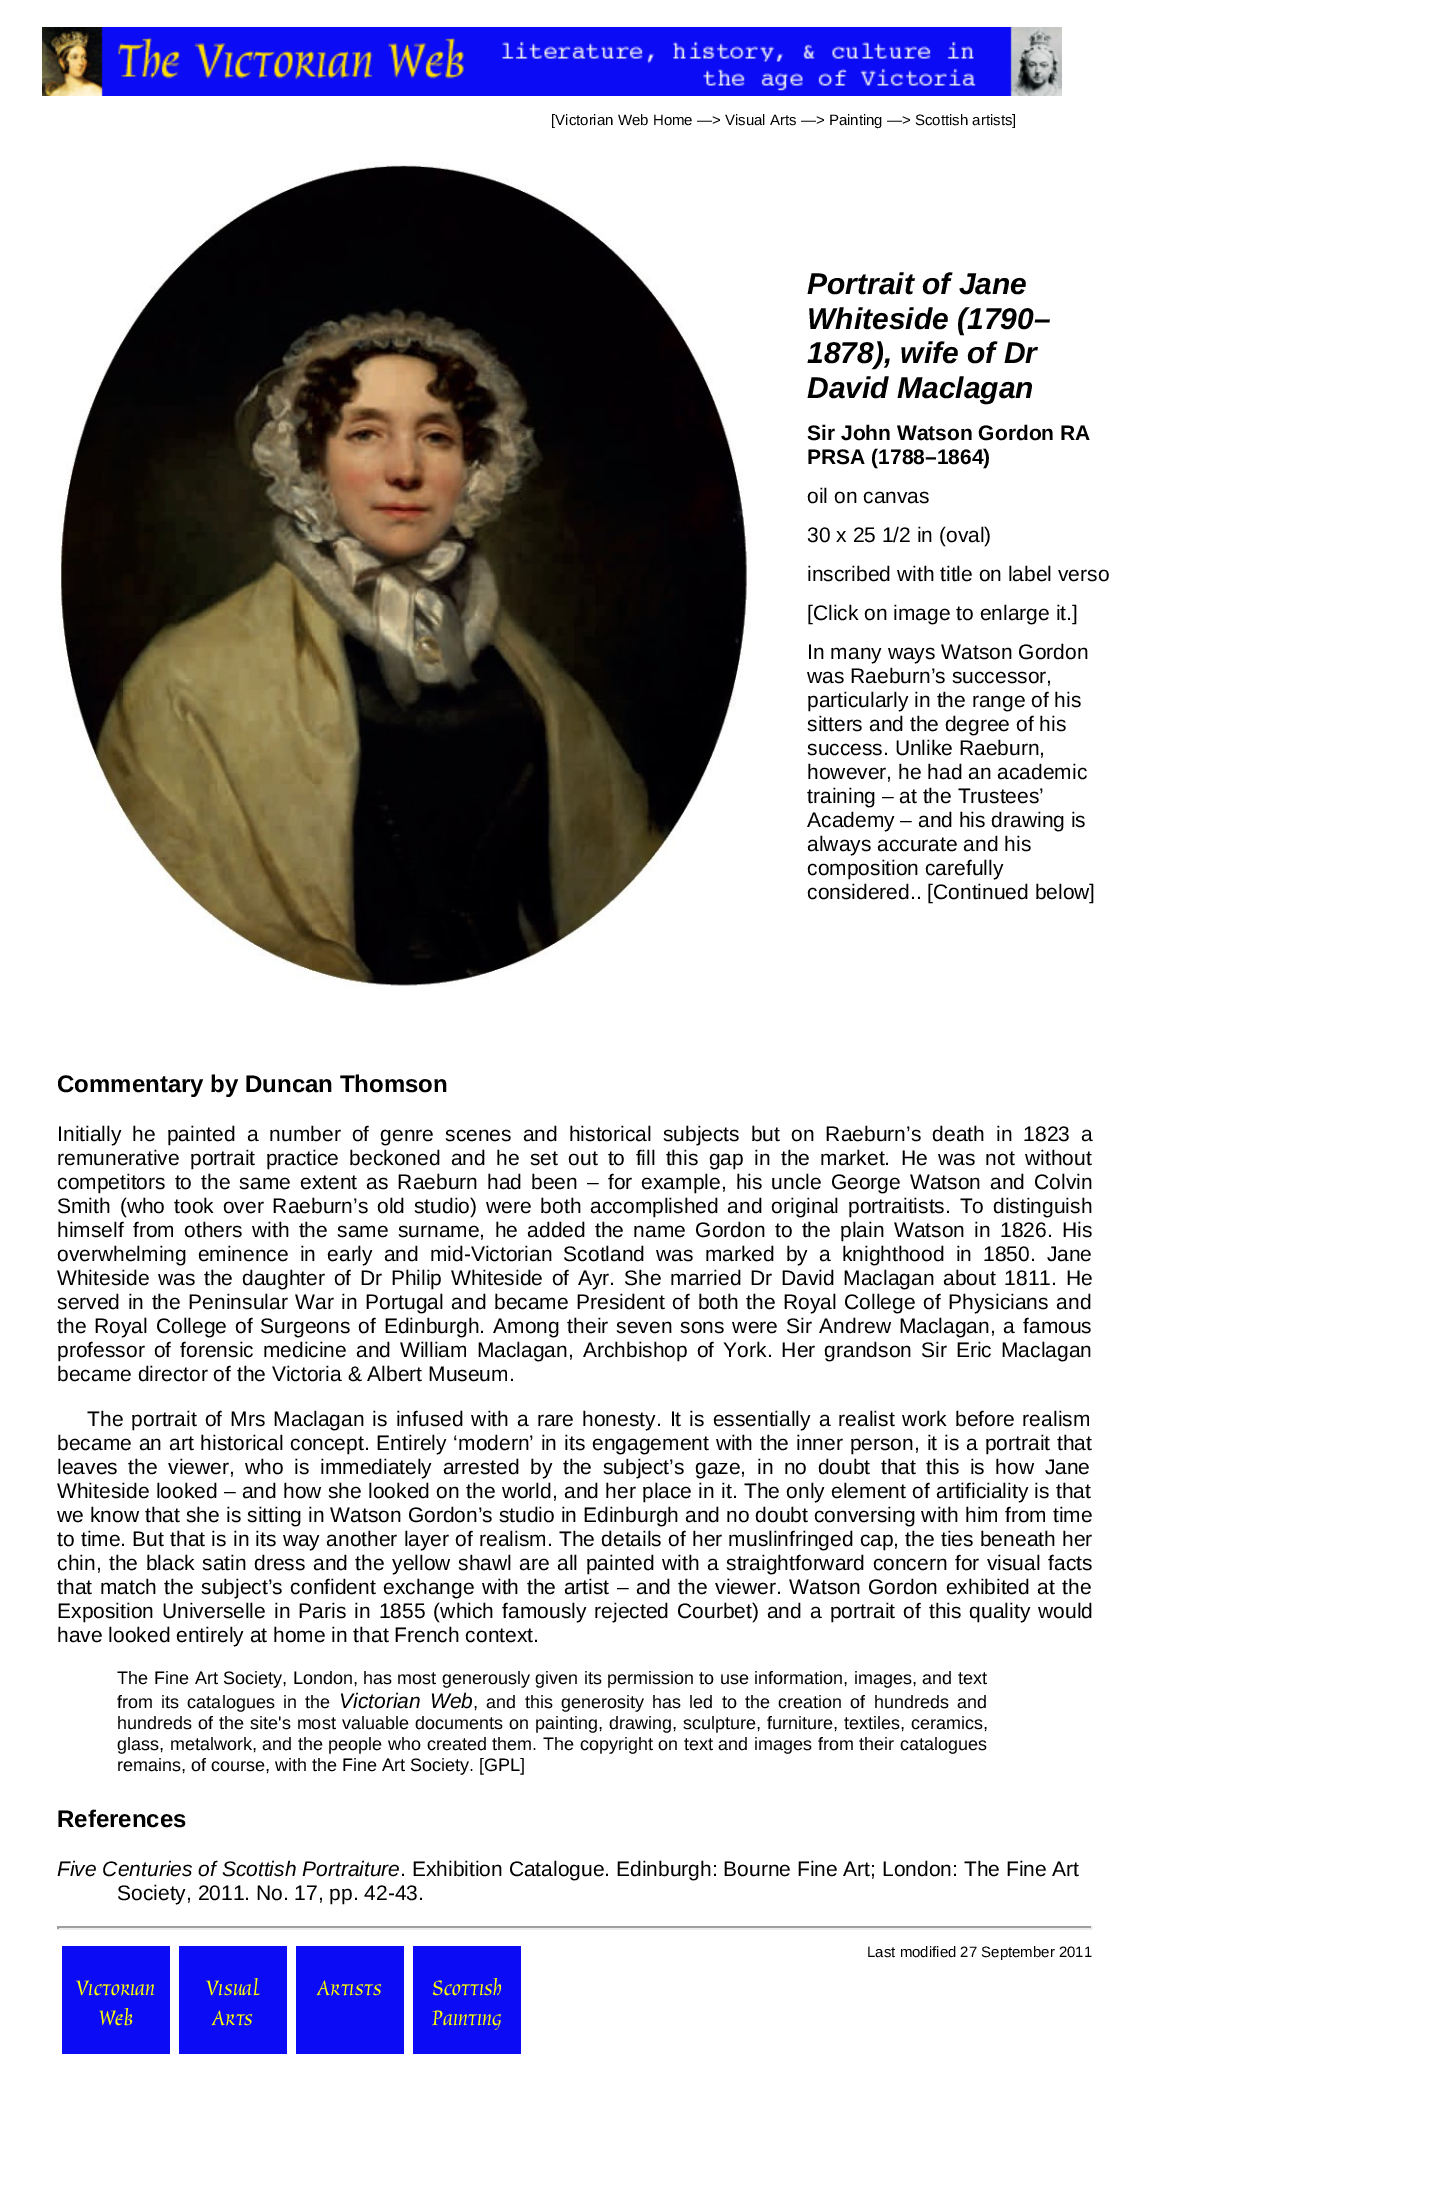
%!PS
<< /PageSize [1447 2206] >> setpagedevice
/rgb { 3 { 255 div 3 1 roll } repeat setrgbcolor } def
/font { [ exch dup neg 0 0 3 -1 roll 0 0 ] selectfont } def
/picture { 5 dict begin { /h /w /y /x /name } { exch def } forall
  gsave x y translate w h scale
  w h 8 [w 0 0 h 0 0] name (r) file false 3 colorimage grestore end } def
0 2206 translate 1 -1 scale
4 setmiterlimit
255 255 255 rgb
0 0 1447 2206 rectfill
(img/1.rgb) 42 27 1020 69 picture
(img/2.rgb) 57 162 694 825 picture
[
  [57 1926 1035 2 159 159 159]
  [1091 1926 2 3 238 238 238]
  [57 1928 1035 2 238 238 238]
  [57 1926 2 3 159 159 159]
  [62 1946 108 108 11 11 245]
  [179 1946 108 108 11 11 245]
  [296 1946 108 108 11 11 245]
  [413 1946 108 108 11 11 245]
] { aload pop rgb rectfill } forall
/LiberationSans-Regular 15 font
0 0 0 rgb
551 125 moveto ([Victorian Web Home —> Visual Arts —> Painting —> Scottish artists]) show
/LiberationSans-BoldItalic 30 font
[
  [(Portrait of Jane) 807 294]
  [(Whiteside \(1790–) 807 329]
  [(1878\), wife of Dr) 807 363]
  [(David Maclagan) 807 398]
] { aload pop moveto show } forall
/LiberationSans-Bold 21 font
807 440 moveto (Sir John Watson Gordon RA) show
807 464 moveto (PRSA \(1788–1864\)) show
/LiberationSans-Regular 21 font
[
  [(oil on canvas) 807 503]
  [(30 x 25 1/2 in \(oval\)) 807 542]
  [(inscribed with title on label verso) 807 581]
  [([Click on image to enlarge it.]) 807 620]
  [(In many ways Watson Gordon) 807 659]
  [(was Raeburn’s successor,) 807 683]
  [(particularly in the range of his) 807 707]
  [(sitters and the degree of his) 807 731]
  [(success. Unlike Raeburn,) 807 755]
  [(however, he had an academic) 807 779]
  [(training – at the Trustees’) 807 803]
  [(Academy – and his drawing is) 807 827]
  [(always accurate and his) 807 851]
  [(composition carefully) 807 875]
  [(considered.. [Continued below]) 807 899]
] { aload pop moveto show } forall
/LiberationSans-Bold 24 font
57 1092 moveto (Commentary by Duncan Thomson) show
/LiberationSans-Regular 21 font
57 1141 moveto 5.25 0 32 (Initially he painted a number of genre scenes and historical subjects but on Raeburn’s death in 1823 a) widthshow
57 1165 moveto 4.5 0 32 (remunerative portrait practice beckoned and he set out to fill this gap in the market. He was not without) widthshow
57 1189 moveto 3.25 0 32 (competitors to the same extent as Raeburn had been – for example, his uncle George Watson and Colvin) widthshow
57 1213 moveto 3.1 0 32 (Smith \(who took over Raeburn’s old studio\) were both accomplished and original portraitists. To distinguish) widthshow
57 1237 moveto 3.5 0 32 (himself from others with the same surname, he added the name Gordon to the plain Watson in 1826. His) widthshow
57 1261 moveto 5.25 0 32 (overwhelming eminence in early and mid-Victorian Scotland was marked by a knighthood in 1850. Jane) widthshow
57 1285 moveto 2.9 0 32 (Whiteside was the daughter of Dr Philip Whiteside of Ayr. She married Dr David Maclagan about 1811. He) widthshow
57 1309 moveto 1.8 0 32 (served in the Peninsular War in Portugal and became President of both the Royal College of Physicians and) widthshow
57 1333 moveto 2.1 0 32 (the Royal College of Surgeons of Edinburgh. Among their seven sons were Sir Andrew Maclagan, a famous) widthshow
57 1357 moveto 3.25 0 32 (professor of forensic medicine and William Maclagan, Archbishop of York. Her grandson Sir Eric Maclagan) widthshow
57 1381 moveto (became director of the Victoria & Albert Museum.) show
87 1426 moveto 2.25 0 32 (The portrait of Mrs Maclagan is infused with a rare honesty. It is essentially a realist work before realism) widthshow
57 1450 moveto 1.1 0 32 (became an art historical concept. Entirely ‘modern’ in its engagement with the inner person, it is a portrait that) widthshow
57 1474 moveto 4.75 0 32 (leaves the viewer, who is immediately arrested by the subject’s gaze, in no doubt that this is how Jane) widthshow
57 1498 moveto 0.5 0 32 (Whiteside looked – and how she looked on the world, and her place in it. The only element of artificiality is that) widthshow
57 1522 moveto 0.2 0 32 (we know that she is sitting in Watson Gordon’s studio in Edinburgh and no doubt conversing with him from time) widthshow
57 1546 moveto 0.4 0 32 (to time. But that is in its way another layer of realism. The details of her muslinfringed cap, the ties beneath her) widthshow
57 1570 moveto 1.7 0 32 (chin, the black satin dress and the yellow shawl are all painted with a straightforward concern for visual facts) widthshow
57 1594 moveto 1.75 0 32 (that match the subject’s confident exchange with the artist – and the viewer. Watson Gordon exhibited at the) widthshow
57 1618 moveto 2.25 0 32 (Exposition Universelle in Paris in 1855 \(which famously rejected Courbet\) and a portrait of this quality would) widthshow
57 1642 moveto (have looked entirely at home in that French context.) show
/LiberationSans-Regular 18 font
117 1684 moveto (The) show
154 1684 moveto 0.5 0 32 (Fine Art Society, London,) widthshow
363 1684 moveto (has) show
397 1684 moveto 0.5 0 32 (most generously given its permission) widthshow
699 1684 moveto 0.5 0 32 (to use information, images, and text) widthshow
117 1708 moveto 3.25 0 32 (from its catalogues in the) widthshow
/LiberationSans-Italic 21 font
339 1708 moveto 3.25 0 32 (Victorian Web) widthshow
/LiberationSans-Regular 18 font
473 1708 moveto 3.25 0 32 (, and this generosity has led to the creation of hundreds and) widthshow
117 1729 moveto 1 0 32 (hundreds of the site's most valuable documents on painting, drawing, sculpture, furniture, textiles, ceramics,) widthshow
117 1750 moveto 0.6 0 32 (glass, metalwork, and the people who created them. The copyright on text and images) widthshow
818 1750 moveto (from) show
859 1750 moveto 1 0 32 (their catalogues) widthshow
117 1771 moveto (remains, of course, with the Fine Art Society. [GPL]) show
/LiberationSans-Bold 24 font
57 1827 moveto (References) show
/LiberationSans-Italic 21 font
57 1876 moveto (Five Centuries of Scottish Portraiture) show
/LiberationSans-Regular 21 font
400 1876 moveto (. Exhibition Catalogue. Edinburgh: Bourne Fine Art; London: The Fine Art) show
117 1900 moveto (Society, 2011. No. 17, pp. 42-43.) show
/LiberationSans-Regular 15 font
867 1957 moveto (Last modified 27 September 2011) show
/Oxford-Regular 24 font
255 255 0 rgb
[
  [(Victorian) 76 1995]
  [(Web) 99 2025]
  [(Visual) 206 1995]
  [(Arts) 212 2025]
  [(Artists) 317 1995]
  [(Scottish) 432 1995]
  [(Painting) 432 2025]
] { aload pop moveto show } forall
showpage
